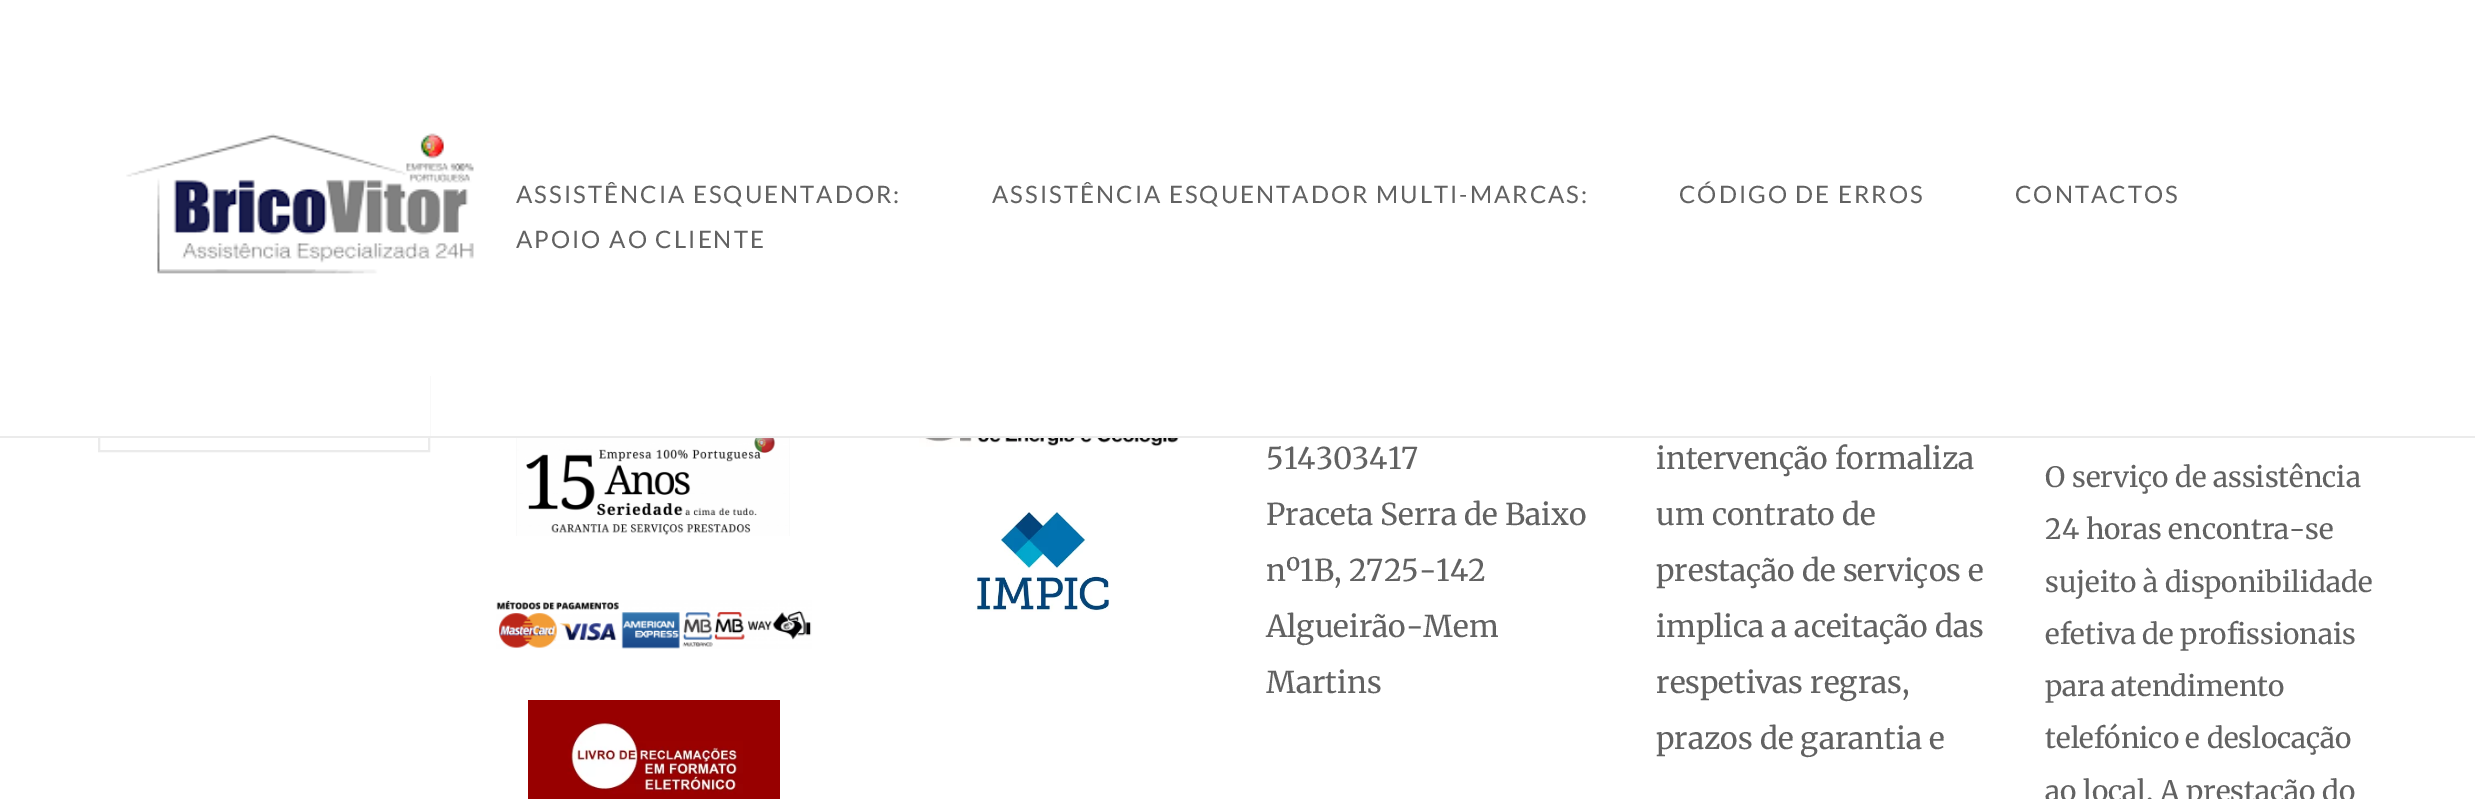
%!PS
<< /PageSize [2475 799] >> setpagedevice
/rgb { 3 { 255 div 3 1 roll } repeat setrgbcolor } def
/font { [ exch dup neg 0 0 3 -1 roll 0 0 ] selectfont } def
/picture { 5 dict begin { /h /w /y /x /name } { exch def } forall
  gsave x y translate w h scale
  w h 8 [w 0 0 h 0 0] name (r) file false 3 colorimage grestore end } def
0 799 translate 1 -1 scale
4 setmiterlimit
255 255 255 rgb
0 0 2475 799 rectfill
235 235 235 rgb
2 setlinewidth
99 377 330 74 rectstroke
255 255 255 rgb
98 376 332 60 rectfill
235 235 235 rgb
0 436 2475 2 rectfill
(img/1.rgb) 126 133 348 141 picture
(img/2.rgb) 516 438 274 98 picture
(img/3.rgb) 496 600 316 49 picture
(img/4.rgb) 528 700 252 99 picture
(img/5.rgb) 904 438 275 9 picture
(img/6.rgb) 975 512 134 100 picture
/Lato-Regular 24 font
98 98 98 rgb
516 203 moveto 2 0 (ASSISTÊNCIA ESQUENTADOR:) ashow
992 203 moveto 2 0 (ASSISTÊNCIA ESQUENTADOR MULTI-MARCAS:) ashow
1679 203 moveto 2 0 (CÓDIGO DE ERROS) ashow
2015 203 moveto 2 0 (CONTACTOS) ashow
516 248 moveto 2 0 (APOIO AO CLIENTE) ashow
/Merriweather-Regular 30 font
[
  [(514303417) 1266 469]
  [(Praceta Serra de Baixo) 1266 525]
  [(nº1B, 2725-142) 1266 581]
  [(Algueirão-Mem) 1266 637]
  [(Martins) 1266 693]
  [(intervenção formaliza) 1656 469]
  [(um contrato de) 1656 525]
  [(prestação de serviços e) 1656 581]
  [(implica a aceitação das) 1656 637]
  [(respetivas regras,) 1656 693]
  [(prazos de garantia e) 1656 749]
] { aload pop moveto show } forall
/Merriweather-Regular 28 font
[
  [(O serviço de assistência) 2045 487]
  [(24 horas encontra-se) 2045 539]
  [(sujeito à disponibilidade) 2045 592]
  [(efetiva de profissionais) 2045 644]
  [(para atendimento) 2045 696]
  [(telefónico e deslocação) 2045 748]
  [(ao local. A prestação do) 2045 801]
] { aload pop moveto show } forall
showpage
